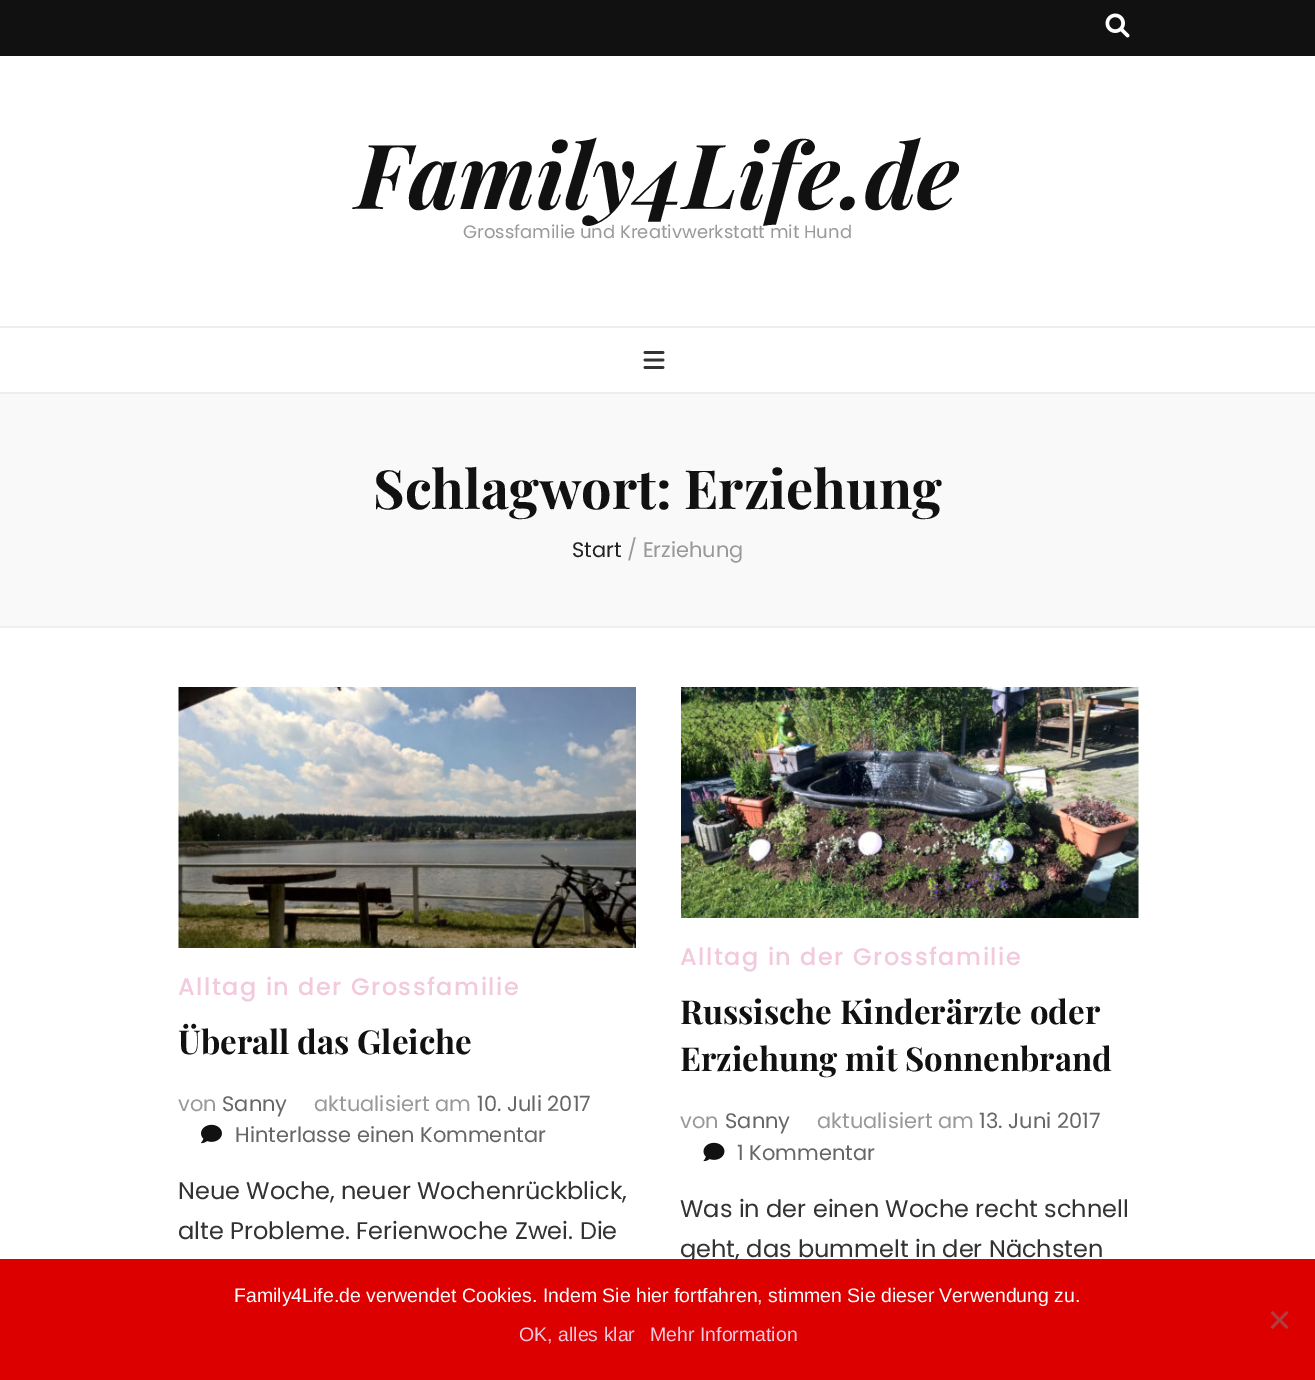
%!PS
<< /PageSize [1315 1380] >> setpagedevice
/rgb { 3 { 255 div 3 1 roll } repeat setrgbcolor } def
/font { [ exch dup neg 0 0 3 -1 roll 0 0 ] selectfont } def
/picture { 5 dict begin { /h /w /y /x /name } { exch def } forall
  gsave x y translate w h scale
  w h 8 [w 0 0 h 0 0] name (r) file false 3 colorimage grestore end } def
0 1380 translate 1 -1 scale
4 setmiterlimit
255 255 255 rgb
0 0 1315 1380 rectfill
17 17 17 rgb
0 0 1315 56 rectfill
(img/1.rgb) 1105 13 25 25 picture
238 238 238 rgb
0 326 1315 2 rectfill
0 392 1315 2 rectfill
(img/2.rgb) 643 351 22 18 picture
249 249 249 rgb
0 394 1315 232 rectfill
238 238 238 rgb
0 626 1315 2 rectfill
(img/3.rgb) 178 687 458 261 picture
(img/4.rgb) 201 1124 21 20 picture
(img/5.rgb) 681 687 458 231 picture
(img/6.rgb) 703 1142 22 20 picture
/PlayfairDisplay-BoldItalic 90 font
17 17 17 rgb
356 209 moveto (Family4Life.de) show
/Poppins-Regular 18 font
153 153 153 rgb
463 238 moveto (Grossfamilie und Kreativwerkstatt mit Hund) show
/PlayfairDisplay-Bold 54 font
17 17 17 rgb
373 509 moveto (Schlagwort: Erziehung) show
/Poppins-Regular 21 font
34 34 34 rgb
572 557 moveto (Start) show
153 153 153 rgb
627 557 moveto (/ Erziehung) show
/Poppins-Medium 24 font
243 201 221 rgb
178 995 moveto 1.5 0 (Alltag in der Grossfamilie) ashow
/PlayfairDisplay-Bold 33 font
17 17 17 rgb
178 1054 moveto (Überall das Gleiche) show
/Poppins-Regular 21 font
153 153 153 rgb
178 1111 moveto (von) show
102 102 102 rgb
222 1111 moveto (Sanny) show
153 153 153 rgb
314 1111 moveto (aktualisiert am) show
102 102 102 rgb
477 1111 moveto (10. Juli 2017) show
235 1142 moveto (Hinterlasse einen Kommentar) show
/Poppins-Regular 24 font
51 51 51 rgb
178 1199 moveto (Neue Woche, neuer Wochenrückblick,) show
178 1239 moveto (alte Probleme. Ferienwoche Zwei. Die) show
/Poppins-Medium 24 font
243 201 221 rgb
680 965 moveto 1.5 0 (Alltag in der Grossfamilie) ashow
/PlayfairDisplay-Bold 33 font
17 17 17 rgb
680 1024 moveto (Russische Kinderärzte oder) show
680 1071 moveto (Erziehung mit Sonnenbrand) show
/Poppins-Regular 21 font
153 153 153 rgb
680 1128 moveto (von) show
102 102 102 rgb
725 1128 moveto (Sanny) show
153 153 153 rgb
817 1128 moveto (aktualisiert am) show
102 102 102 rgb
979 1128 moveto (13. Juni 2017) show
737 1160 moveto (1 Kommentar) show
/Poppins-Regular 24 font
51 51 51 rgb
680 1217 moveto (Was in der einen Woche recht schnell) show
680 1257 moveto (geht, das bummelt in der Nächsten) show
221 0 0 rgb
0 1259 1315 121 rectfill
/LiberationSans-Regular 19.5 font
255 255 255 rgb
234 1302 moveto (Family4Life.de verwendet Cookies. Indem Sie hier fortfahren, stimmen Sie dieser Verwendung zu.) show
175 64 64 rgb
1286.5 1311 moveto 1288.5 1313 lineto 1272.5 1329 lineto 1270.5 1327 lineto closepath fill
1270.5 1313 moveto 1272.5 1311 lineto 1288.5 1327 lineto 1286.5 1329 lineto closepath fill
243 201 221 rgb
519 1341 moveto (OK, alles klar) show
650 1341 moveto (Mehr Information) show
showpage
